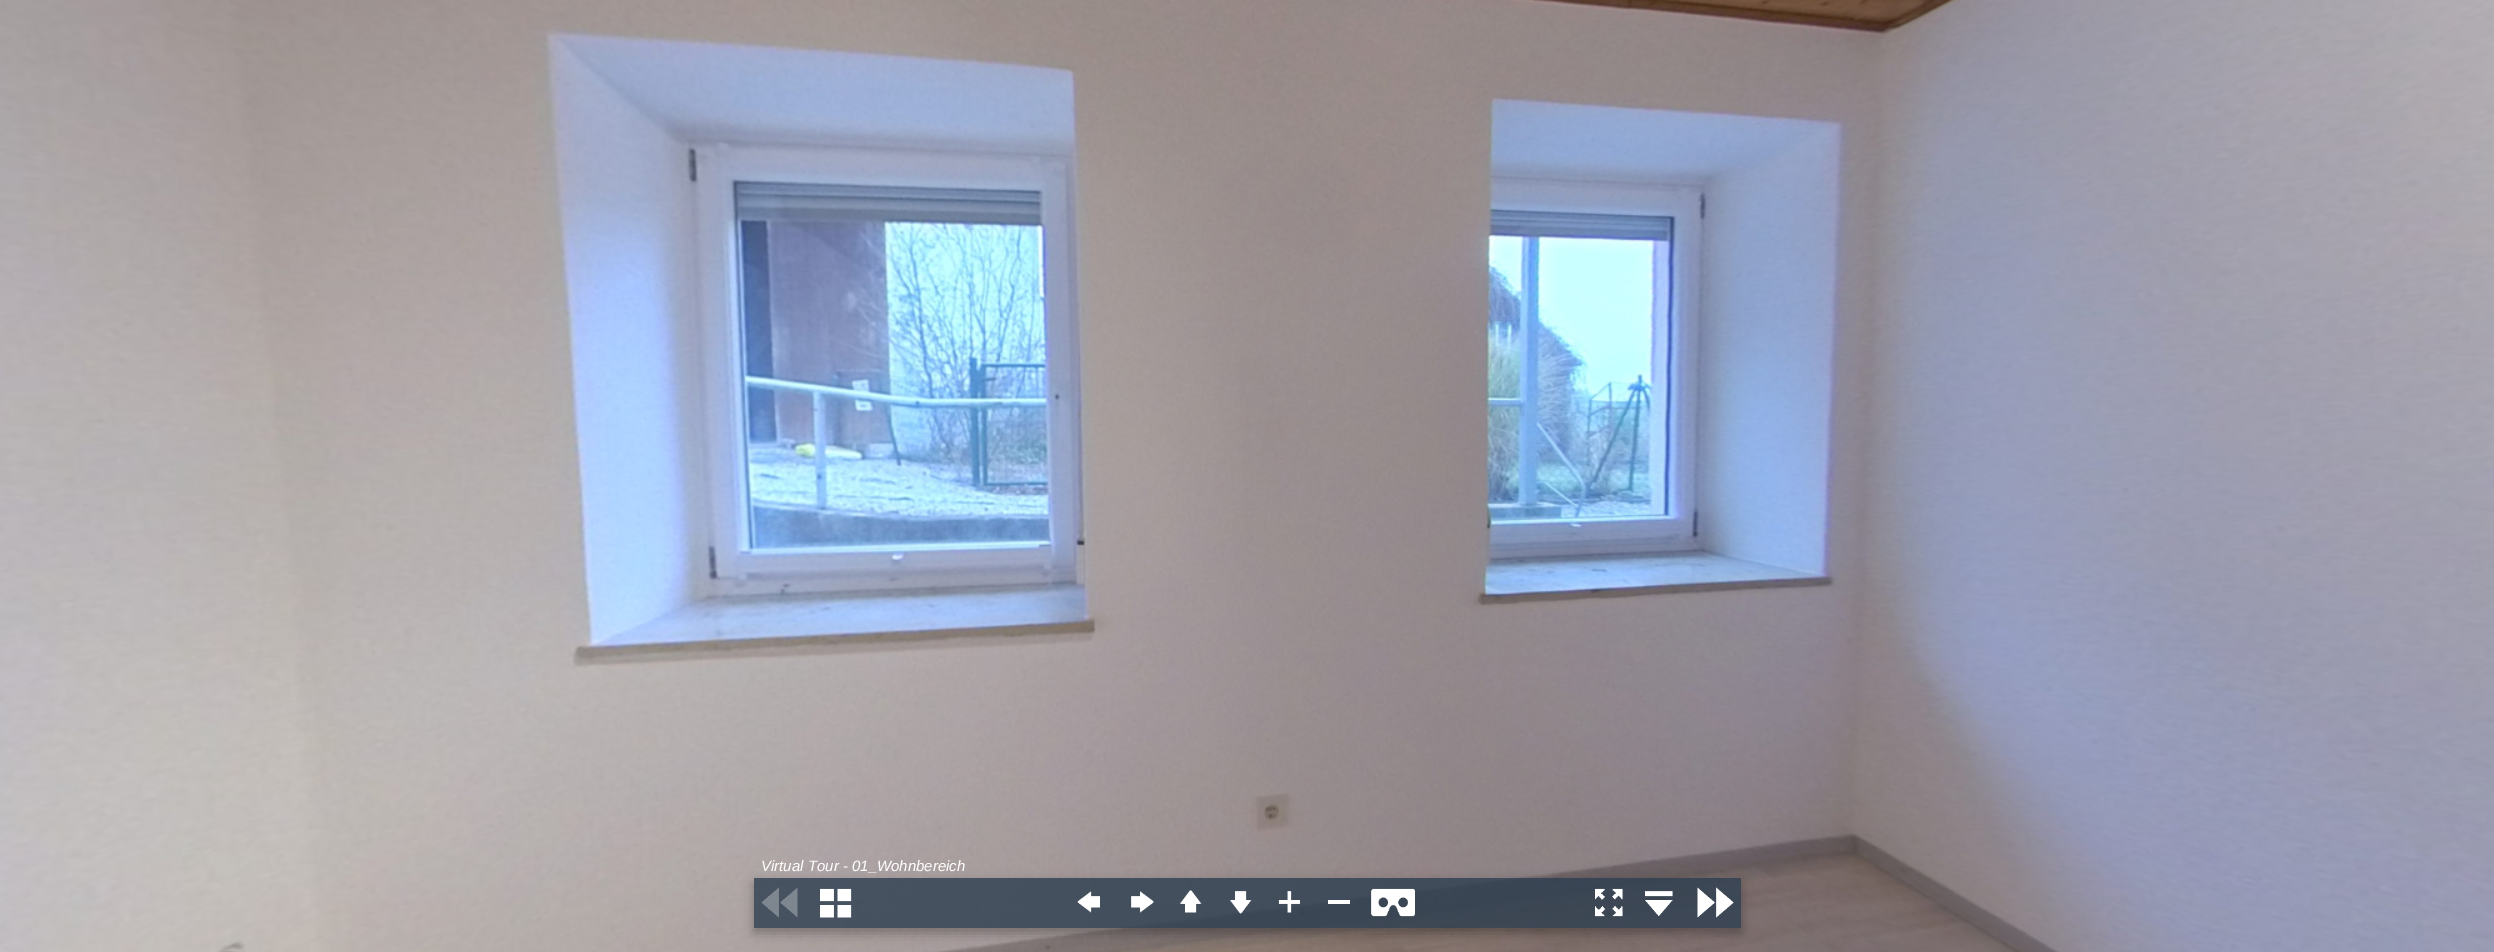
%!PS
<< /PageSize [2494 952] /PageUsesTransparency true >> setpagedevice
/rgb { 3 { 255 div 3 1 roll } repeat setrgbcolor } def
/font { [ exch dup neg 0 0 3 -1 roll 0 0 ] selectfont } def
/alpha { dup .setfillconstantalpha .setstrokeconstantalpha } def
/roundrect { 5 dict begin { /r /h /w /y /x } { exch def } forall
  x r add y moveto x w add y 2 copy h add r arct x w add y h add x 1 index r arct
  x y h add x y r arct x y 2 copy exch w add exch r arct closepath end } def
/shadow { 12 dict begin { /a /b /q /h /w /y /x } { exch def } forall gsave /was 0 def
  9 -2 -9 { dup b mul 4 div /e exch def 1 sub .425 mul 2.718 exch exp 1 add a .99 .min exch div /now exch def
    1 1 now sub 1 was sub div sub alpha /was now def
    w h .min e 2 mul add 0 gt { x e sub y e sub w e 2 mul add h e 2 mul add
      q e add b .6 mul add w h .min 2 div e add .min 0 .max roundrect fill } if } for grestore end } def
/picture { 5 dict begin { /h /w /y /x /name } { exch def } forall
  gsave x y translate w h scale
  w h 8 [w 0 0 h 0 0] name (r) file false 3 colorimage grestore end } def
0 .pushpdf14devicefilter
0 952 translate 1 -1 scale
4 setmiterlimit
255 255 255 rgb
0 0 2494 952 rectfill
(img/1.rgb) 0 0 2494 952 picture
gsave
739 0 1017 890 rectclip
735 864 moveto 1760 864 lineto 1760 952 lineto 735 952 lineto closepath 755 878 moveto 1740 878 lineto 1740.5 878 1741 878.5 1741 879 curveto 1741 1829 lineto 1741 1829.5 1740.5 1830 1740 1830 curveto 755 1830 lineto 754.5 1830 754 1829.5 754 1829 curveto 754 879 lineto 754 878.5 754.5 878 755 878 curveto closepath eoclip newpath
0 0 0 rgb
754 883 987 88 1 6 0.3 shadow
grestore
0.8 alpha
45 62 80 rgb
755 878 moveto 1740 878 lineto 1740.5 878 1741 878.5 1741 879 curveto 1741 890 lineto 754 890 lineto 754 879 lineto 754 878.5 754.5 878 755 878 curveto closepath fill
gsave
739 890 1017 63 rectclip
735 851 moveto 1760 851 lineto 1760 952 lineto 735 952 lineto closepath 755 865 moveto 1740 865 lineto 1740.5 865 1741 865.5 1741 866 curveto 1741 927 lineto 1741 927.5 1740.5 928 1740 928 curveto 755 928 lineto 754.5 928 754 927.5 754 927 curveto 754 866 lineto 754 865.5 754.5 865 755 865 curveto closepath eoclip newpath
1 alpha
0 0 0 rgb
754 870 987 63 1 6 0.3 shadow
grestore
754 890 moveto 1741 890 lineto 1741 927 lineto 1741 927.5 1740.5 928 1740 928 curveto 755 928 lineto 754.5 928 754 927.5 754 927 curveto closepath fill
1 alpha
(img/2.rgb) 761 887 37 31 picture
(img/3.rgb) 820 888 32 30 picture
(img/4.rgb) 1077 891 23 22 picture
(img/5.rgb) 1131 891 23 22 picture
(img/6.rgb) 1179 890 23 23 picture
(img/7.rgb) 1229 891 23 23 picture
(img/8.rgb) 1278 891 22 22 picture
255 255 255 rgb
1328 900 22 4 rectfill
(img/9.rgb) 1371 888 44 29 picture
(img/10.rgb) 1595 888 28 29 picture
(img/11.rgb) 1645 891 28 26 picture
(img/12.rgb) 1697 887 37 31 picture
/LiberationSans-Italic 15 font
761 871 moveto (Virtual Tour - 01_Wohnbereich) show
.poppdf14devicefilter showpage
